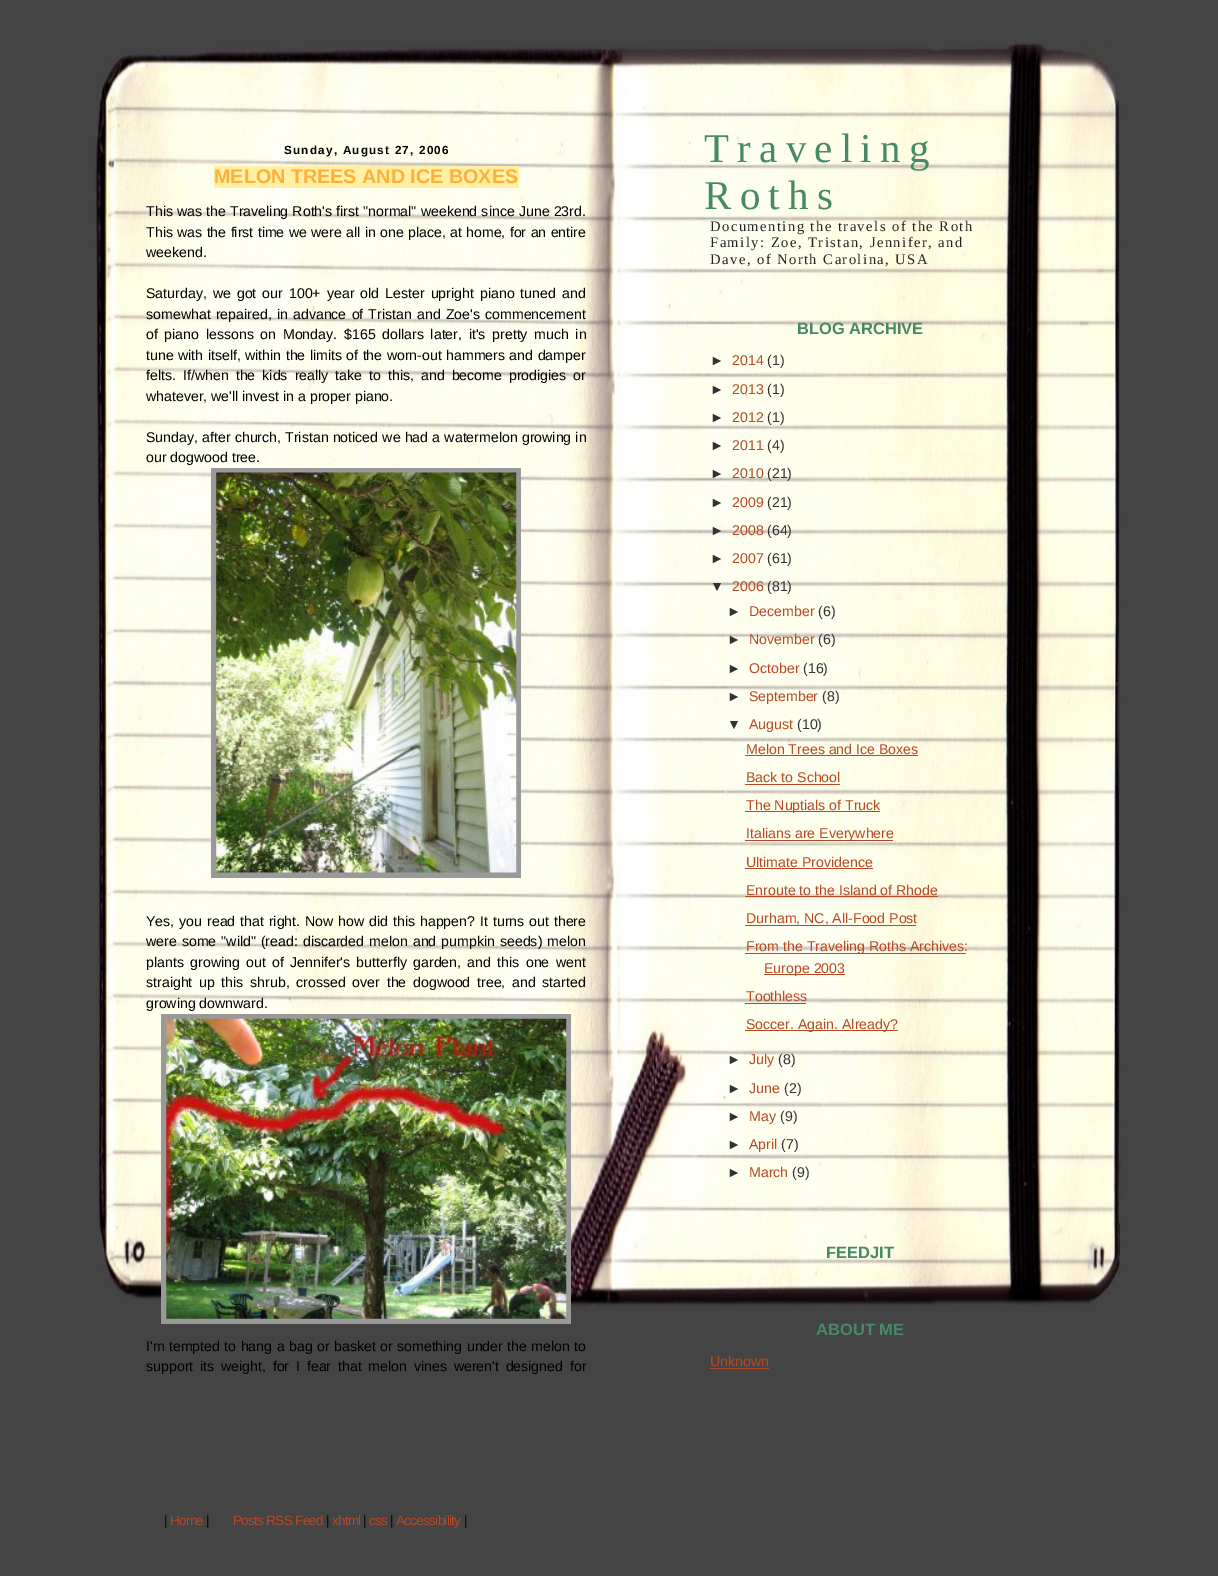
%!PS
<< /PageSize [1218 1576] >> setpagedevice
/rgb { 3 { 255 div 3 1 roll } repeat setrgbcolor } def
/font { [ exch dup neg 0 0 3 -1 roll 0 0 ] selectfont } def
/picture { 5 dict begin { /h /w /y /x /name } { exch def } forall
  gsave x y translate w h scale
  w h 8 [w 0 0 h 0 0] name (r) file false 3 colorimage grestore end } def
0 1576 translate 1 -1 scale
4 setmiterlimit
68 68 68 rgb
0 0 1218 1576 rectfill
(img/1.rgb) 95 42 1028 1269 picture
255 240 165 rgb
214 166 305 22 rectfill
153 153 153 rgb
211 468 310 410 rectfill
(img/2.rgb) 216 472 301 401 picture
161 1014 410 310 rectfill
(img/3.rgb) 166 1018 401 301 picture
[
  [745 755 173 1 182 73 38]
  [745 784 95 1 182 73 38]
  [745 811 135 1 182 73 38]
  [745 840 148 1 182 73 38]
  [745 868 128 1 182 73 38]
  [745 896 193 1 182 73 38]
  [745 925 171 1 182 73 38]
  [745 953 221 1 182 73 38]
  [764 974 81 1 182 73 38]
  [745 1003 61 1 182 73 38]
  [745 1030 153 1 182 73 38]
  [710 1368 59 1 182 73 38]
] { aload pop rgb rectfill } forall
/LiberationSans-Bold 11.75 font
0 0 0 rgb
284 154 moveto 1.2 0 (Sunday, August 27, 2006) ashow
/LiberationSans-Bold 19.75 font
255 176 59 rgb
214 183 moveto (MELON TREES AND ICE BOXES) show
/LiberationSans-Regular 14.15 font
0 0 0 rgb
146 216 moveto 0.25 0 32 (This was the Traveling Roth's first "normal" weekend since June 23rd.) widthshow
146 237 moveto 0.4 0 32 (This was the first time we were all in one place, at home, for an entire) widthshow
146 257 moveto (weekend.) show
146 298 moveto 2.1 0 32 (Saturday, we got our 100+ year old Lester upright piano tuned and) widthshow
146 319 moveto 1.25 0 32 (somewhat repaired, in advance of Tristan and Zoe's commencement) widthshow
146 339 moveto 2.75 0 32 (of piano lessons on Monday.) widthshow
344 339 moveto 2.75 0 32 ($165 dollars later, it's pretty much in) widthshow
146 360 moveto 0.5 0 32 (tune with itself, within the limits of the worn-out hammers and damper) widthshow
146 380 moveto (felts.) show
183 380 moveto 3.1 0 32 (If/when the kids really take to this, and become prodigies or) widthshow
146 401 moveto (whatever, we'll invest in a proper piano.) show
146 442 moveto 0.25 0 32 (Sunday, after church, Tristan noticed we had a watermelon growing in) widthshow
146 462 moveto (our dogwood tree.) show
146 926 moveto 1 0 32 (Yes, you read that right.) widthshow
305 926 moveto 1 0 32 (Now how did this happen?) widthshow
480 926 moveto 1 0 32 (It turns out there) widthshow
146 946 moveto 1.1 0 32 (were some "wild" \(read: discarded melon and pumpkin seeds\) melon) widthshow
146 967 moveto 2.4 0 32 (plants growing out of Jennifer's butterfly garden, and this one went) widthshow
146 987 moveto 2.75 0 32 (straight up this shrub, crossed over the dogwood tree, and started) widthshow
146 1008 moveto (growing downward.) show
146 1351 moveto 0.5 0 32 (I'm tempted to hang a bag or basket or something under the melon to) widthshow
146 1371 moveto 2.9 0 32 (support its weight, for I fear that melon vines weren't designed for) widthshow
/LiberationSerif-Regular 41 font
70 137 102 rgb
704 162 moveto 8.25 0 (Traveling) ashow
704 209 moveto 8.25 0 (Roths) ashow
/LiberationSerif-Regular 14.6 font
34 34 34 rgb
710 231 moveto 1.45 0 (Documenting the travels of the Roth) ashow
710 247 moveto 1.45 0 (Family: Zoe, Tristan, Jennifer, and) ashow
710 264 moveto 1.45 0 (Dave, of North Carolina, USA) ashow
/LiberationSans-Bold 16.5 font
70 137 102 rgb
797 334 moveto (BLOG ARCHIVE) show
/LiberationSans-Regular 14.15 font
51 51 51 rgb
710 365 moveto (►) show
182 73 38 rgb
732 365 moveto (2014) show
51 51 51 rgb
767 365 moveto (\(1\)) show
710 394 moveto (►) show
182 73 38 rgb
732 394 moveto (2013) show
51 51 51 rgb
767 394 moveto (\(1\)) show
710 422 moveto (►) show
182 73 38 rgb
732 422 moveto (2012) show
51 51 51 rgb
767 422 moveto (\(1\)) show
710 450 moveto (►) show
182 73 38 rgb
732 450 moveto (2011) show
51 51 51 rgb
767 450 moveto (\(4\)) show
710 478 moveto (►) show
182 73 38 rgb
732 478 moveto (2010) show
51 51 51 rgb
767 478 moveto (\(21\)) show
710 507 moveto (►) show
182 73 38 rgb
732 507 moveto (2009) show
51 51 51 rgb
767 507 moveto (\(21\)) show
710 535 moveto (►) show
182 73 38 rgb
732 535 moveto (2008) show
51 51 51 rgb
767 535 moveto (\(64\)) show
710 563 moveto (►) show
182 73 38 rgb
732 563 moveto (2007) show
51 51 51 rgb
767 563 moveto (\(61\)) show
710 591 moveto (▼) show
182 73 38 rgb
732 591 moveto (2006) show
51 51 51 rgb
767 591 moveto (\(81\)) show
727 616 moveto (►) show
182 73 38 rgb
749 616 moveto (December) show
51 51 51 rgb
818 616 moveto (\(6\)) show
727 644 moveto (►) show
182 73 38 rgb
749 644 moveto (November) show
51 51 51 rgb
818 644 moveto (\(6\)) show
727 673 moveto (►) show
182 73 38 rgb
749 673 moveto (October) show
51 51 51 rgb
803 673 moveto (\(16\)) show
727 701 moveto (►) show
182 73 38 rgb
749 701 moveto (September) show
51 51 51 rgb
822 701 moveto (\(8\)) show
727 729 moveto (▼) show
182 73 38 rgb
749 729 moveto (August) show
51 51 51 rgb
797 729 moveto (\(10\)) show
182 73 38 rgb
[
  [(Melon Trees and Ice Boxes) 746 754]
  [(Back to School) 746 782]
  [(The Nuptials of Truck) 746 810]
  [(Italians are Everywhere) 746 838]
  [(Ultimate Providence) 746 867]
  [(Enroute to the Island of Rhode) 746 895]
  [(Durham, NC, All-Food Post) 746 923]
  [(From the Traveling Roths Archives:) 746 951]
  [(Europe 2003) 764 973]
  [(Toothless) 746 1001]
  [(Soccer. Again. Already?) 746 1029]
] { aload pop moveto show } forall
51 51 51 rgb
727 1064 moveto (►) show
182 73 38 rgb
749 1064 moveto (July) show
51 51 51 rgb
778 1064 moveto (\(8\)) show
727 1093 moveto (►) show
182 73 38 rgb
749 1093 moveto (June) show
51 51 51 rgb
784 1093 moveto (\(2\)) show
727 1121 moveto (►) show
182 73 38 rgb
749 1121 moveto (May) show
51 51 51 rgb
780 1121 moveto (\(9\)) show
727 1149 moveto (►) show
182 73 38 rgb
749 1149 moveto (April) show
51 51 51 rgb
781 1149 moveto (\(7\)) show
727 1177 moveto (►) show
182 73 38 rgb
749 1177 moveto (March) show
51 51 51 rgb
792 1177 moveto (\(9\)) show
/LiberationSans-Bold 16.5 font
70 137 102 rgb
826 1258 moveto (FEEDJIT) show
816 1335 moveto (ABOUT ME) show
/LiberationSans-Regular 14.15 font
182 73 38 rgb
710 1366 moveto (Unknown) show
/LiberationSans-Regular 13.5 font
0 0 0 rgb
164 1525 moveto -0.7 0 (|) ashow
182 73 38 rgb
170 1525 moveto -0.7 0 (Home) ashow
0 0 0 rgb
206 1525 moveto -0.7 0 (|) ashow
182 73 38 rgb
233 1525 moveto -0.7 0 (Posts RSS Feed) ashow
0 0 0 rgb
326 1525 moveto -0.7 0 (|) ashow
182 73 38 rgb
332 1525 moveto -0.7 0 (xhtml) ashow
0 0 0 rgb
363 1525 moveto -0.7 0 (|) ashow
182 73 38 rgb
369 1525 moveto -0.7 0 (css) ashow
0 0 0 rgb
390 1525 moveto -0.7 0 (|) ashow
182 73 38 rgb
396 1525 moveto -0.7 0 (Accessibility) ashow
0 0 0 rgb
464 1525 moveto -0.7 0 (|) ashow
showpage
